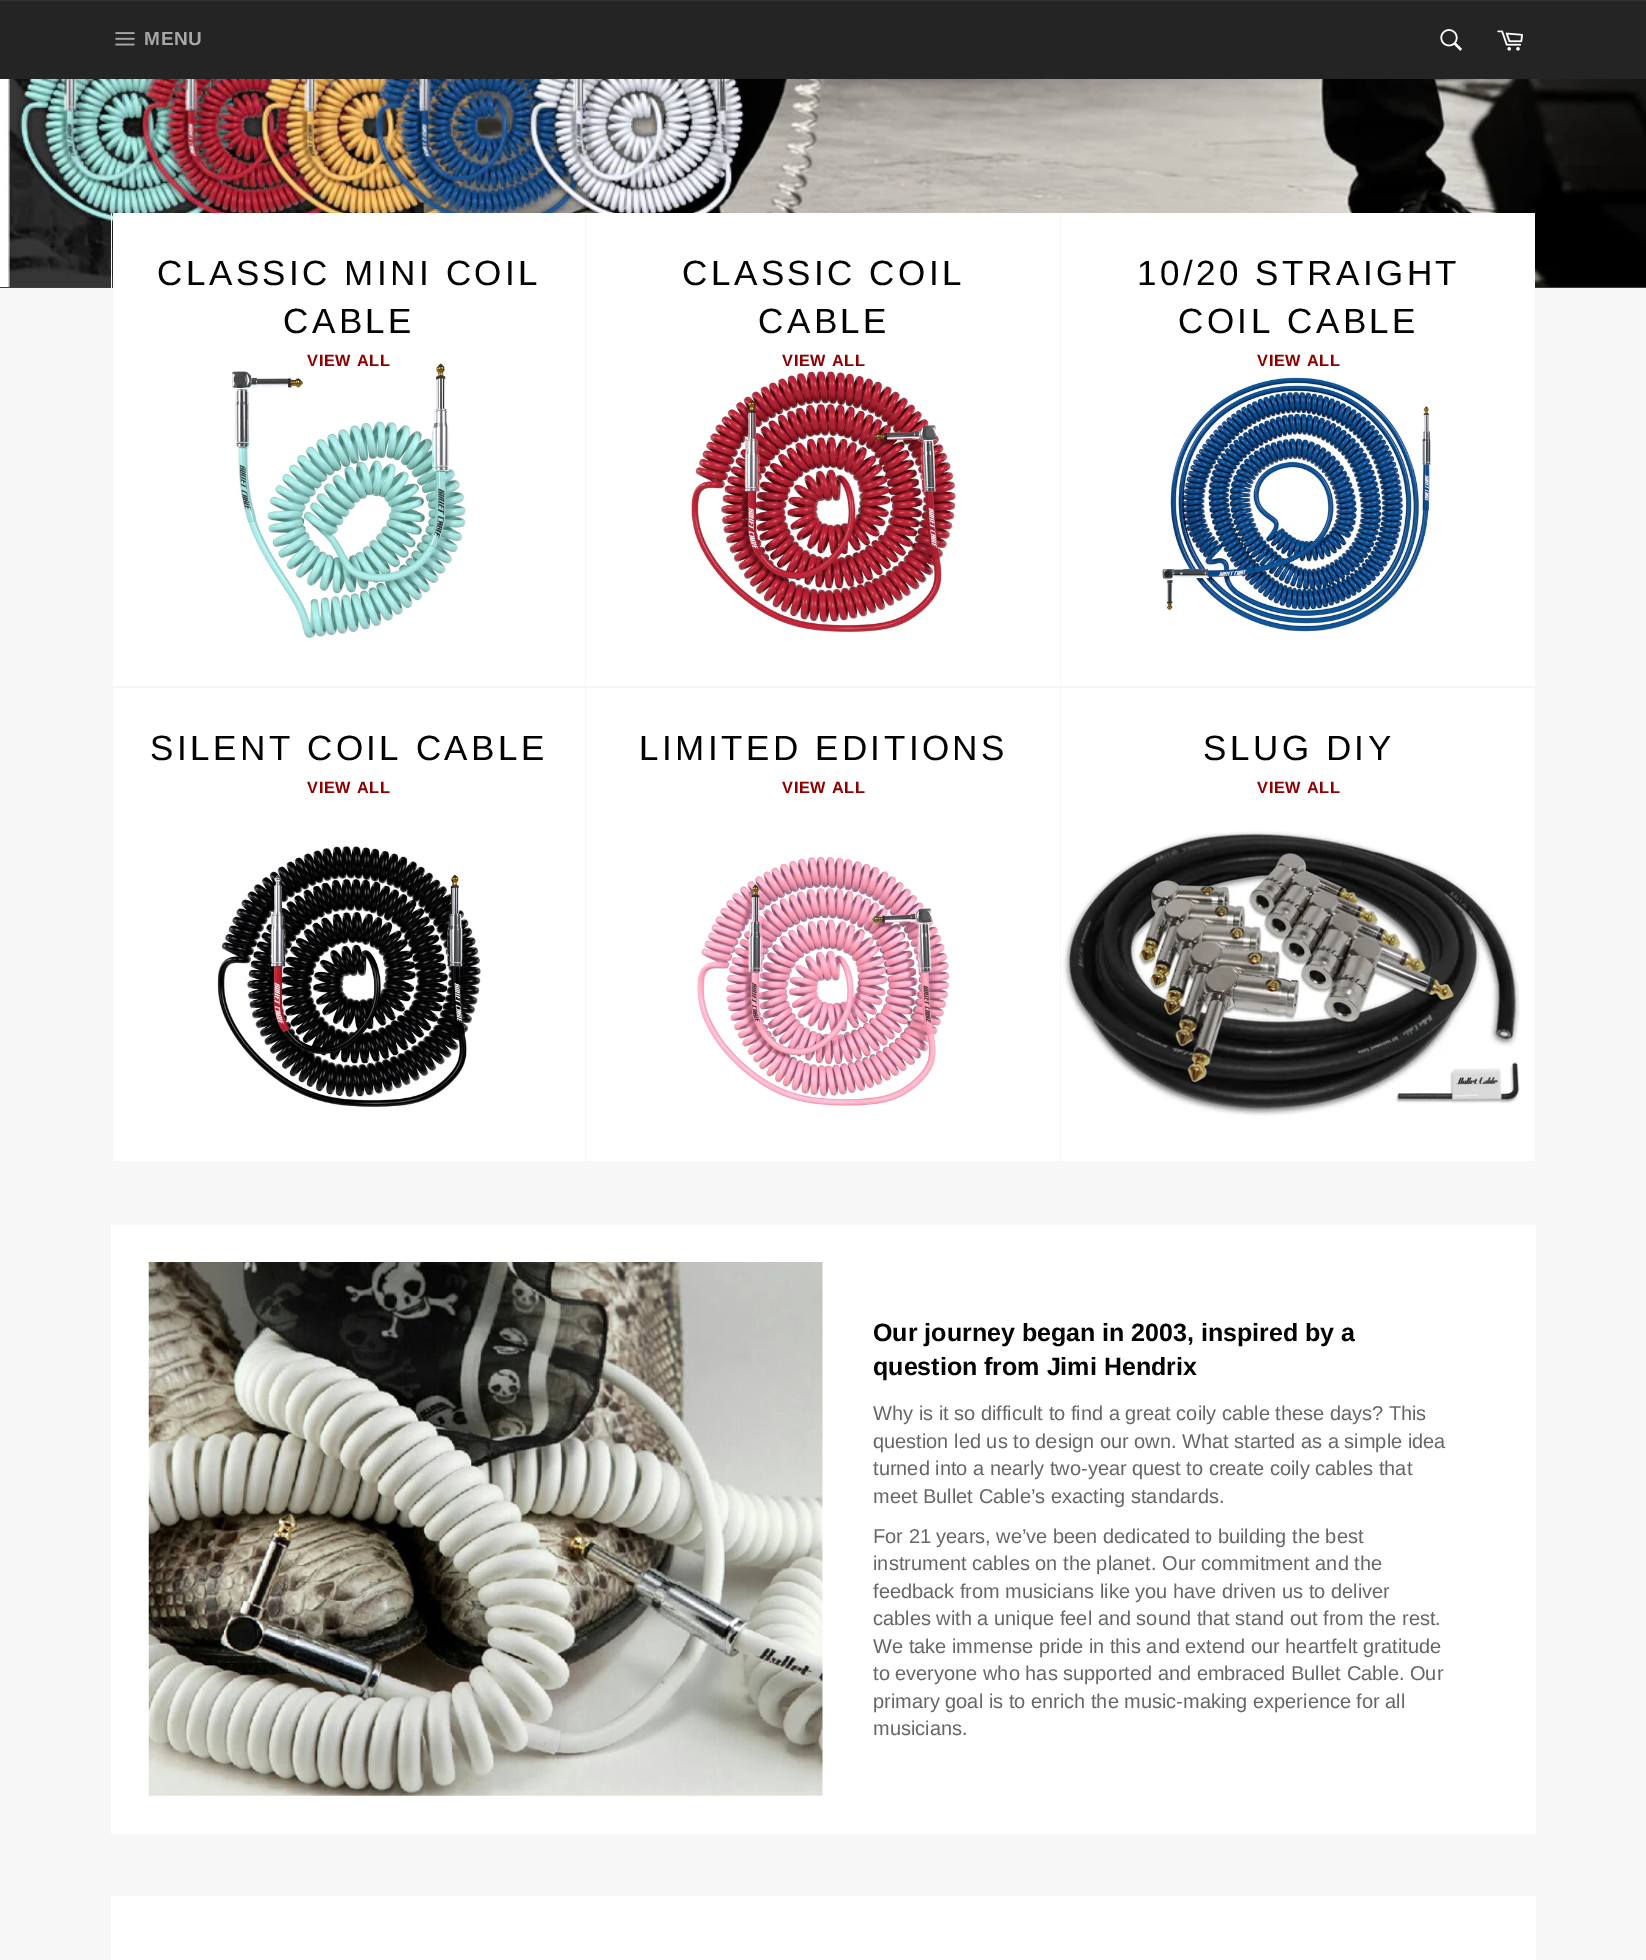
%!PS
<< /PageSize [1646 1960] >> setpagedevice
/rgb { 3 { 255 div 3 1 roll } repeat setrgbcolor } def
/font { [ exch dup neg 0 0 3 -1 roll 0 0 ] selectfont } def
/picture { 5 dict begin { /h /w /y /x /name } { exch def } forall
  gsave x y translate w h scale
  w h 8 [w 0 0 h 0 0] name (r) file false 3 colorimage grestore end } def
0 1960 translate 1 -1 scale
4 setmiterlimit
247 247 247 rgb
0 0 1646 1960 rectfill
36 36 36 rgb
0 1 1646 78 rectfill
49 49 49 rgb
0 0 1646 1 rectfill
(img/1.rgb) 115 32 20 14 picture
(img/2.rgb) 1440 29 22 22 picture
(img/3.rgb) 1497 30 26 21 picture
62 62 62 rgb
0 287 1646 1 rectfill
(img/4.rgb) 0 79 1646 208 picture
255 255 255 rgb
113 213 472 473 rectfill
247 247 247 rgb
111 213 1 75 rectfill
(img/5.rgb) 232 363 234 276 picture
255 255 255 rgb
586 213 474 473 rectfill
247 247 247 rgb
585 213 1 75 rectfill
(img/6.rgb) 691 369 265 264 picture
255 255 255 rgb
1061 213 474 473 rectfill
247 247 247 rgb
1060 213 1 75 rectfill
(img/7.rgb) 1161 375 270 258 picture
255 255 255 rgb
113 688 472 473 rectfill
(img/8.rgb) 217 846 264 262 picture
586 688 474 473 rectfill
(img/9.rgb) 697 856 253 250 picture
1061 688 474 473 rectfill
(img/10.rgb) 1063 831 457 285 picture
111 1225 1425 609 rectfill
(img/11.rgb) 148 1262 675 534 picture
111 1896 1425 64 rectfill
/LiberationSans-Bold 19 font
167 167 167 rgb
144 45 moveto 0.75 0 (MENU) ashow
/LiberationSans-Regular 35 font
3 3 3 rgb
157 285 moveto 3.5 0 (CLASSIC MINI COIL) ashow
283 333 moveto 3.5 0 (CABLE) ashow
/LiberationSans-Bold 16.25 font
142 0 0 rgb
307 366 moveto 0.75 0 (VIEW ALL) ashow
/LiberationSans-Regular 35 font
3 3 3 rgb
682 285 moveto 3.5 0 (CLASSIC COIL) ashow
758 333 moveto 3.5 0 (CABLE) ashow
/LiberationSans-Bold 16.25 font
142 0 0 rgb
782 366 moveto 0.75 0 (VIEW ALL) ashow
/LiberationSans-Regular 35 font
3 3 3 rgb
1137 285 moveto 3.5 0 (10/20 STRAIGHT) ashow
1178 333 moveto 3.5 0 (COIL CABLE) ashow
/LiberationSans-Bold 16.25 font
142 0 0 rgb
1257 366 moveto 0.75 0 (VIEW ALL) ashow
/LiberationSans-Regular 35 font
3 3 3 rgb
150 760 moveto 3.5 0 (SILENT COIL CABLE) ashow
/LiberationSans-Bold 16.25 font
142 0 0 rgb
307 793 moveto 0.75 0 (VIEW ALL) ashow
/LiberationSans-Regular 35 font
3 3 3 rgb
639 760 moveto 3.5 0 (LIMITED EDITIONS) ashow
/LiberationSans-Bold 16.25 font
142 0 0 rgb
782 793 moveto 0.75 0 (VIEW ALL) ashow
/LiberationSans-Regular 35 font
3 3 3 rgb
1203 760 moveto 3.5 0 (SLUG DIY) ashow
/LiberationSans-Bold 16.25 font
142 0 0 rgb
1257 793 moveto 0.75 0 (VIEW ALL) ashow
/LiberationSans-Bold 25 font
3 3 3 rgb
873 1341 moveto (Our journey began in 2003, inspired by a) show
873 1375 moveto (question from Jimi Hendrix) show
/LiberationSans-Regular 20 font
102 102 102 rgb
[
  [(Why is it so difficult to find a great coily cable these days? This) 873 1420]
  [(question led us to design our own. What started as a simple idea) 873 1448]
  [(turned into a nearly two-year quest to create coily cables that) 873 1475]
  [(meet Bullet Cable’s exacting standards.) 873 1503]
  [(For 21 years, we’ve been dedicated to building the best) 873 1543]
  [(instrument cables on the planet. Our commitment and the) 873 1570]
  [(feedback from musicians like you have driven us to deliver) 873 1598]
  [(cables with a unique feel and sound that stand out from the rest.) 873 1625]
  [(We take immense pride in this and extend our heartfelt gratitude) 873 1653]
  [(to everyone who has supported and embraced Bullet Cable. Our) 873 1680]
  [(primary goal is to enrich the music-making experience for all) 873 1708]
  [(musicians.) 873 1735]
] { aload pop moveto show } forall
showpage
